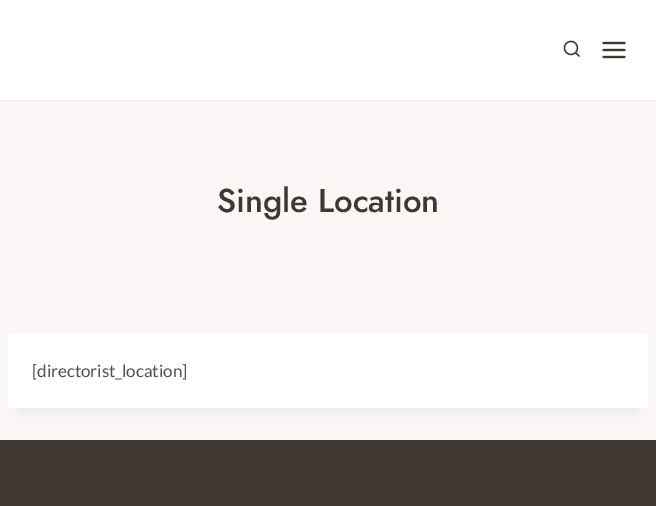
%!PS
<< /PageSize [656 506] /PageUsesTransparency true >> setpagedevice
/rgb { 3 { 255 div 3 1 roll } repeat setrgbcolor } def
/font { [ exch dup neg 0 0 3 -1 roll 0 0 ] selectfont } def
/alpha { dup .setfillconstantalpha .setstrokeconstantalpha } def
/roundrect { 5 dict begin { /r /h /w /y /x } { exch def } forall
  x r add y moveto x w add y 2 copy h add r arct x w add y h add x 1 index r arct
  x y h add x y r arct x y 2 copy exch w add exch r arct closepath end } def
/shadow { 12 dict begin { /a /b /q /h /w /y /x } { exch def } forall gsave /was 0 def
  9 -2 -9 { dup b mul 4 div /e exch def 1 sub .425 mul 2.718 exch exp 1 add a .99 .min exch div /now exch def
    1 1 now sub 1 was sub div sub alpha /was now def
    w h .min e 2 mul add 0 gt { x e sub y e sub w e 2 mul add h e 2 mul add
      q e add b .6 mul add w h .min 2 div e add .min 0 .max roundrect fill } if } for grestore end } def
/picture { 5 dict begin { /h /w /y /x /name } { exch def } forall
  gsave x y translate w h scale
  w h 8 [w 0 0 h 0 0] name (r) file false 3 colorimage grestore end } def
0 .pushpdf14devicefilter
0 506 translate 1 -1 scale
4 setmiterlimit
250 247 246 rgb
0 0 656 506 rectfill
255 255 255 rgb
0 0 656 100 rectfill
238 238 238 rgb
0 100 656 1 rectfill
(img/1.rgb) 563 40 17 17 picture
(img/2.rgb) 602 41 24 18 picture
0 0 0 rgb
18 358 620 55 0 7.5 0.05 shadow
255 255 255 rgb
8 333 640 75 rectfill
62 55 50 rgb
0 440 656 66 rectfill
/Jost-Medium 33 font
217 212 moveto (Single Location) show
/Lato-Regular 17 font
85 78 73 rgb
32 377 moveto ([directorist_location]) show
.poppdf14devicefilter showpage
